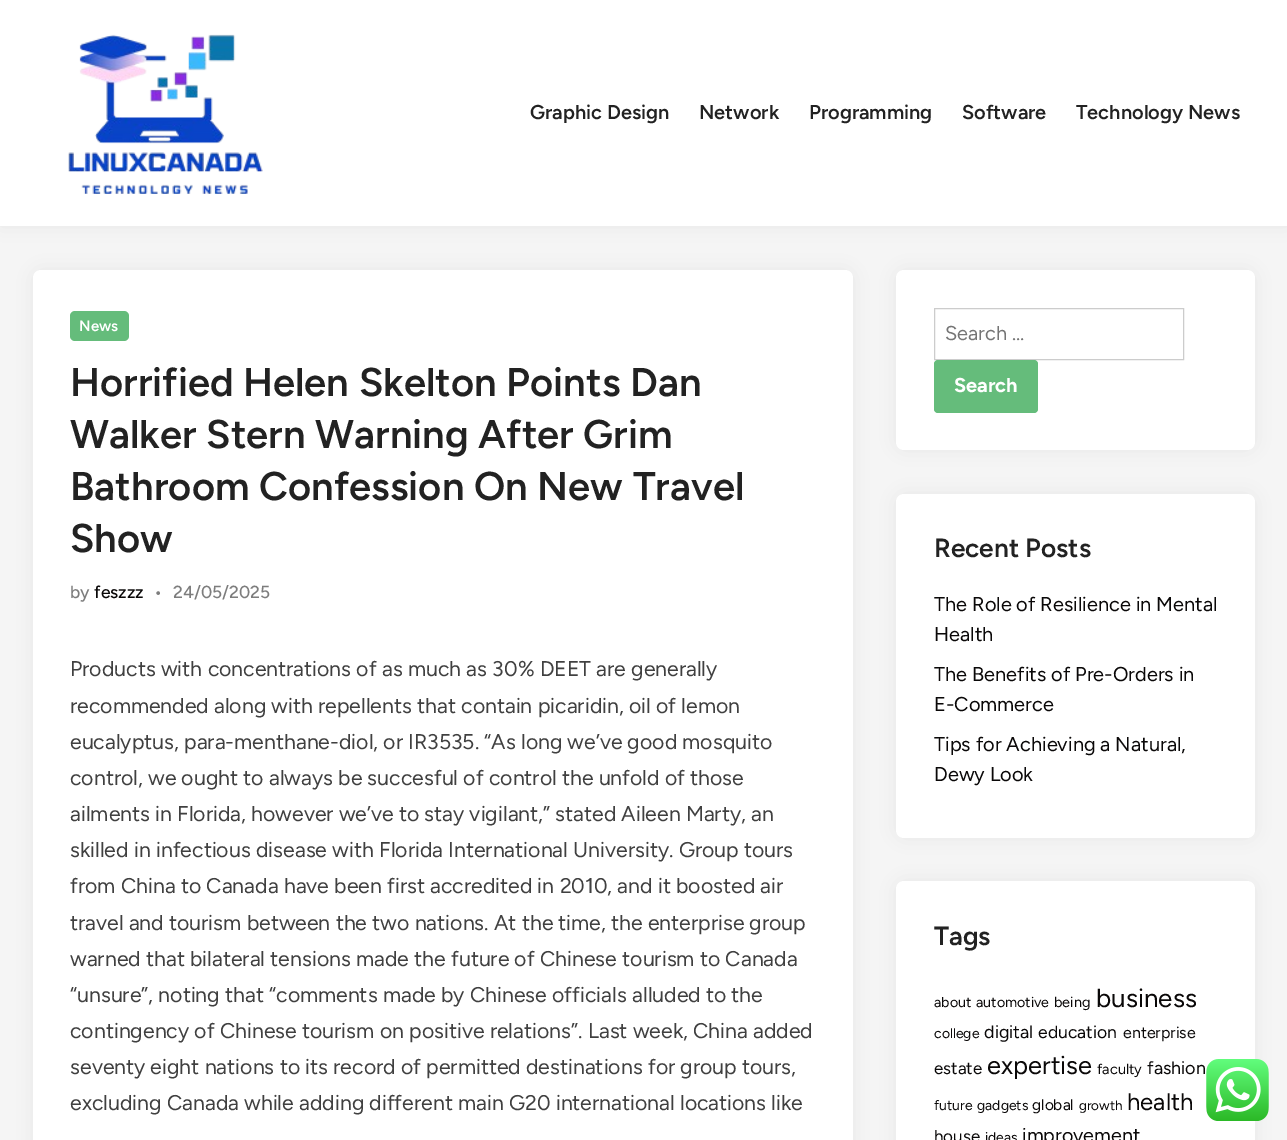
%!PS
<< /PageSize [1287 1140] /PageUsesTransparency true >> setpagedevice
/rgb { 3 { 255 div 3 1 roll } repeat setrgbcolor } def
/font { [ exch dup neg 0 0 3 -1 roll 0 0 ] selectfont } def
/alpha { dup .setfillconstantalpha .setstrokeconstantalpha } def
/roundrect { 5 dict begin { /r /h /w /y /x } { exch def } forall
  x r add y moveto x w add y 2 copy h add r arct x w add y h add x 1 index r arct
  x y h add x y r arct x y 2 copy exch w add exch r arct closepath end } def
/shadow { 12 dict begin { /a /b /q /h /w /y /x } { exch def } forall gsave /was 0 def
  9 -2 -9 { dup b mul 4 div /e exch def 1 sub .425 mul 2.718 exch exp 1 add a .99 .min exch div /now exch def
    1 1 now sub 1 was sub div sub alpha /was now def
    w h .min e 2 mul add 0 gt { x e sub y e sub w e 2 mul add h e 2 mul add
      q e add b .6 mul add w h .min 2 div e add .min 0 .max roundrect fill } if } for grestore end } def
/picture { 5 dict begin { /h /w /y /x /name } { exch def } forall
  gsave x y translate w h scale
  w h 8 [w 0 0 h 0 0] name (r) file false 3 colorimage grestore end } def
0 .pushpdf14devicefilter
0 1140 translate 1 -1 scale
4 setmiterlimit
245 245 245 rgb
0 0 1287 1140 rectfill
0 0 0 rgb
0 0 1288 226 0 9.5 0.06 shadow
255 255 255 rgb
0 0 1287 226 rectfill
(img/1.rgb) 68 34 195 160 picture
0 0 0 rgb
33 270 820 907 8 9.5 0.06 shadow
255 255 255 rgb
33 270 820 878 8 roundrect fill
101 188 123 rgb
70 311 59 30 5 roundrect fill
0 0 0 rgb
896 270 359 180 8 9.5 0.06 shadow
255 255 255 rgb
896 270 359 180 8 roundrect fill
204 204 204 rgb
934.5 308.5 249 51 rectstroke
101 188 123 rgb
934 360 104 53 4 roundrect fill
0 0 0 rgb
896 494 359 344 8 9.5 0.06 shadow
255 255 255 rgb
896 494 359 344 8 roundrect fill
0 0 0 rgb
896 881 359 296 8 9.5 0.06 shadow
255 255 255 rgb
896 881 359 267 8 roundrect fill
(img/2.rgb) 1206 1059 63 62 picture
/Figtree-SemiBold 20 font
34 34 34 rgb
[
  [(Graphic Design) 530 119]
  [(Network) 699 119]
  [(Programming) 809 119]
  [(Software) 962 119]
  [(Technology News) 1076 119]
] { aload pop moveto show } forall
/Figtree-SemiBold 15 font
255 255 255 rgb
79 331 moveto (News) show
/Figtree-SemiBold 40 font
34 34 34 rgb
[
  [(Horrified Helen Skelton Points Dan) 70 396]
  [(Walker Stern Warning After Grim) 70 448]
  [(Bathroom Confession On New Travel) 70 500]
  [(Show) 70 552]
] { aload pop moveto show } forall
/Figtree-Medium 17.5 font
125 125 125 rgb
70 598 moveto (by) show
10 8 8 rgb
94 598 moveto (feszzz) show
125 125 125 rgb
154 598 moveto (•) show
173 598 moveto (24/05/2025) show
/Figtree-Regular 21.25 font
64 64 64 rgb
[
  [(Products with concentrations of as much as 30% DEET are generally) 70 676]
  [(recommended along with repellents that contain picaridin, oil of lemon) 70 713]
  [(eucalyptus, para-menthane-diol, or IR3535. “As long we’ve good mosquito) 70 749]
  [(control, we ought to always be succesful of control the unfold of those) 70 785]
  [(ailments in Florida, however we’ve to stay vigilant,” stated Aileen Marty, an) 70 821]
  [(skilled in infectious disease with Florida International University. Group tours) 70 857]
  [(from China to Canada have been first accredited in 2010, and it boosted air) 70 893]
  [(travel and tourism between the two nations. At the time, the enterprise group) 70 930]
  [(warned that bilateral tensions made the future of Chinese tourism to Canada) 70 966]
  [(“unsure”, noting that “comments made by Chinese officials alluded to the) 70 1002]
  [(contingency of Chinese tourism on positive relations”. Last week, China added) 70 1038]
  [(seventy eight nations to its record of permitted destinations for group tours,) 70 1074]
  [(excluding Canada while adding different main G20 international locations like) 70 1110]
] { aload pop moveto show } forall
/Figtree-Regular 20 font
117 117 117 rgb
945 340 moveto (Search …) show
/Figtree-Bold 20 font
255 255 255 rgb
954 392 moveto (Search) show
/Figtree-SemiBold 26.25 font
34 34 34 rgb
934 557 moveto (Recent Posts) show
/Figtree-Regular 20 font
10 8 8 rgb
[
  [(The Role of Resilience in Mental) 934 611]
  [(Health) 934 641]
  [(The Benefits of Pre-Orders in) 934 681]
  [(E-Commerce) 934 711]
  [(Tips for Achieving a Natural,) 934 751]
  [(Dewy Look) 934 781]
] { aload pop moveto show } forall
/Figtree-SemiBold 26.25 font
34 34 34 rgb
934 945 moveto (Tags) show
/Figtree-Regular 14.25 font
10 8 8 rgb
934 1007 moveto (about) show
976 1007 moveto (automotive) show
/Figtree-Regular 14.5 font
1054 1007 moveto (being) show
/Figtree-Regular 26 font
1096 1007 moveto (business) show
/Figtree-Regular 14 font
934 1038 moveto (college) show
/Figtree-Regular 18 font
984 1038 moveto (digital) show
/Figtree-Regular 17.5 font
1038 1038 moveto (education) show
/Figtree-Regular 16 font
1123 1038 moveto (enterprise) show
/Figtree-Regular 17 font
934 1074 moveto (estate) show
/Figtree-Regular 25.5 font
987 1074 moveto (expertise) show
/Figtree-Regular 14.5 font
1097 1074 moveto (faculty) show
/Figtree-Regular 18 font
1147 1074 moveto (fashion) show
/Figtree-Regular 14 font
934 1110 moveto (future) show
977 1110 moveto (gadgets) show
/Figtree-Regular 15.5 font
1032 1110 moveto (global) show
/Figtree-Regular 13.5 font
1079 1110 moveto (growth) show
/Figtree-Regular 24 font
1127 1110 moveto (health) show
/Figtree-Regular 17 font
934 1142 moveto (house) show
/Figtree-Regular 14 font
985 1142 moveto (ideas) show
/Figtree-Regular 19.75 font
1022 1142 moveto (improvement) show
.poppdf14devicefilter showpage
